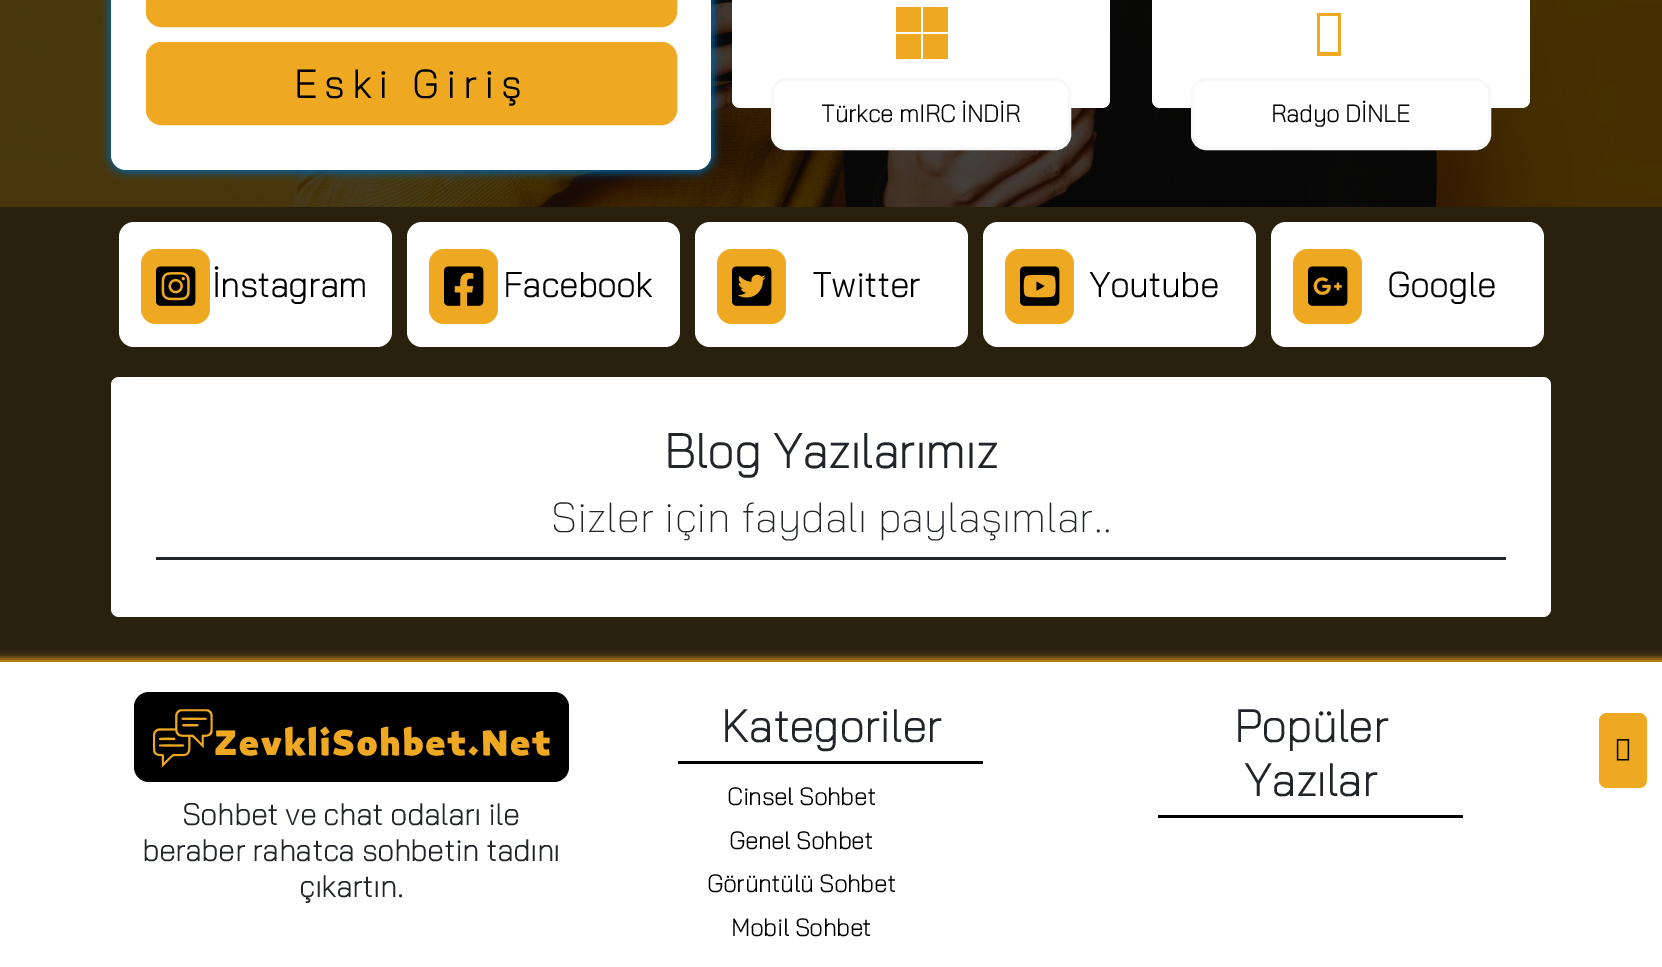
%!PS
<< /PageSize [1662 967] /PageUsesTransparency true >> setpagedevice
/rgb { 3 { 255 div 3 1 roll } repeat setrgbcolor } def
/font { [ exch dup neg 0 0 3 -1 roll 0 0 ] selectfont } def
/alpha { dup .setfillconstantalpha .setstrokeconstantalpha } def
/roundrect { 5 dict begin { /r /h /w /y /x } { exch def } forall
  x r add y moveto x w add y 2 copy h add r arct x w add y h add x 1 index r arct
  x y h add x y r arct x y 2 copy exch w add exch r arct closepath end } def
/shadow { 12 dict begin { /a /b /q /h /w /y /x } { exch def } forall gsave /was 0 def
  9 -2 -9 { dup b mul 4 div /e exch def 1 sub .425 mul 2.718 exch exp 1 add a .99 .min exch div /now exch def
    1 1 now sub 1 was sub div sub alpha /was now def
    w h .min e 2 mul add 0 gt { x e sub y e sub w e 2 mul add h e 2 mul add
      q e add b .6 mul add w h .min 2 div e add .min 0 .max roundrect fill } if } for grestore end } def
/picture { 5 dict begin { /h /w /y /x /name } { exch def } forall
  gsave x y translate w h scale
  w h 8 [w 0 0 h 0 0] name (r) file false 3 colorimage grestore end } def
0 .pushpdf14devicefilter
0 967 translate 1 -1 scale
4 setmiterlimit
41 32 13 rgb
0 0 1662 967 rectfill
0 0 0 rgb
0 0 1662 207 rectfill
(img/1.rgb) 0 0 1662 207 picture
1 94 155 rgb
108 -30 606 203 18 4 1 shadow
255 255 255 rgb
111 -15 600 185 15 roundrect fill
238 168 34 rgb
148.5 -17.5 526 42 12.5 roundrect gsave fill grestore
5 setlinewidth
stroke
148.5 44.5 526 78 12.5 roundrect gsave fill grestore
stroke
255 255 255 rgb
732 -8 378 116 8 roundrect fill
238 168 34 rgb
896 7 moveto 921 7 lineto 921 32 lineto 896 32 lineto closepath 923 7 moveto 948 7 lineto 948 32 lineto 923 32 lineto closepath 896 34 moveto 921 34 lineto 921 59 lineto 896 59 lineto closepath 923 34 moveto 948 34 lineto 948 59 lineto 923 59 lineto closepath fill
255 255 255 rgb
772.5 79.5 297 69 13.5 roundrect gsave fill grestore
248 248 248 rgb
3 setlinewidth
stroke
255 255 255 rgb
1152 -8 378 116 8 roundrect fill
238 168 34 rgb
1317 56 moveto 1317 13 lineto 1341 13 lineto 1341 56 lineto closepath 1320 52 moveto 1338 52 lineto 1338 16 lineto 1320 16 lineto closepath fill
255 255 255 rgb
1192.5 79.5 297 69 13.5 roundrect gsave fill grestore
248 248 248 rgb
stroke
255 255 255 rgb
119 222 273 125 15 roundrect fill
238 168 34 rgb
141 249 69 75 15 roundrect fill
(img/2.rgb) 156 266 40 40 picture
255 255 255 rgb
407 222 273 125 15 roundrect fill
238 168 34 rgb
429 249 69 75 15 roundrect fill
(img/3.rgb) 444 266 40 40 picture
255 255 255 rgb
695 222 273 125 15 roundrect fill
238 168 34 rgb
717 249 69 75 15 roundrect fill
(img/4.rgb) 732 266 40 40 picture
255 255 255 rgb
983 222 273 125 15 roundrect fill
238 168 34 rgb
1005 249 69 75 15 roundrect fill
(img/5.rgb) 1020 266 40 40 picture
255 255 255 rgb
1271 222 273 125 15 roundrect fill
238 168 34 rgb
1293 249 69 75 15 roundrect fill
(img/6.rgb) 1308 266 40 40 picture
255 255 255 rgb
111 377 1440 240 8 roundrect fill
33 37 41 rgb
156 557 1350 3 rectfill
238 168 34 rgb
-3 659 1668 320 0 4 1 shadow
[
  [0 662 1662 305 255 255 255]
  [678 761 305 3 0 0 0]
  [1158 815 305 3 0 0 0]
] { aload pop rgb rectfill } forall
134 692 435 90 15 roundrect fill
(img/7.rgb) 153 709 397 59 picture
238 168 34 rgb
1599 713 48 75 8 roundrect fill
(img/8.rgb) 1616 739 14 22 picture
/BaiJamjuree-Bold 39 font
0 0 0 rgb
294 98 moveto 7.5 0 (Eski Giriş) ashow
/BaiJamjuree-Bold 24 font
821 122 moveto (Türkce mIRC İNDİR) show
1271 122 moveto (Radyo DİNLE) show
/BaiJamjuree-Bold 34.5 font
[
  [(İnstagram) 212 297]
  [(Facebook) 503 297]
  [(Twitter) 812 297]
  [(Youtube) 1089 297]
  [(Google) 1387 297]
] { aload pop moveto show } forall
/BaiJamjuree-Bold 48 font
33 37 41 rgb
664 468 moveto (Blog Yazılarımız) show
/BaiJamjuree-ExtraLight 42 font
551 532 moveto (Sizler için faydalı paylaşımlar..) show
/BaiJamjuree-Bold 45 font
721 742 moveto (Kategoriler) show
/BaiJamjuree-Bold 24 font
0 0 0 rgb
[
  [(Cinsel Sohbet) 727 805]
  [(Genel Sohbet) 729 849]
  [(Görüntülü Sohbet) 707 892]
  [(Mobil Sohbet) 731 936]
] { aload pop moveto show } forall
/BaiJamjuree-Bold 45 font
33 37 41 rgb
1234 742 moveto (Popüler) show
1244 796 moveto (Yazılar) show
/BaiJamjuree-Bold 30 font
[
  [(Sohbet ve chat odaları ile) 182 825]
  [(beraber rahatca sohbetin tadını) 142 861]
  [(çıkartın.) 299 897]
] { aload pop moveto show } forall
.poppdf14devicefilter showpage
